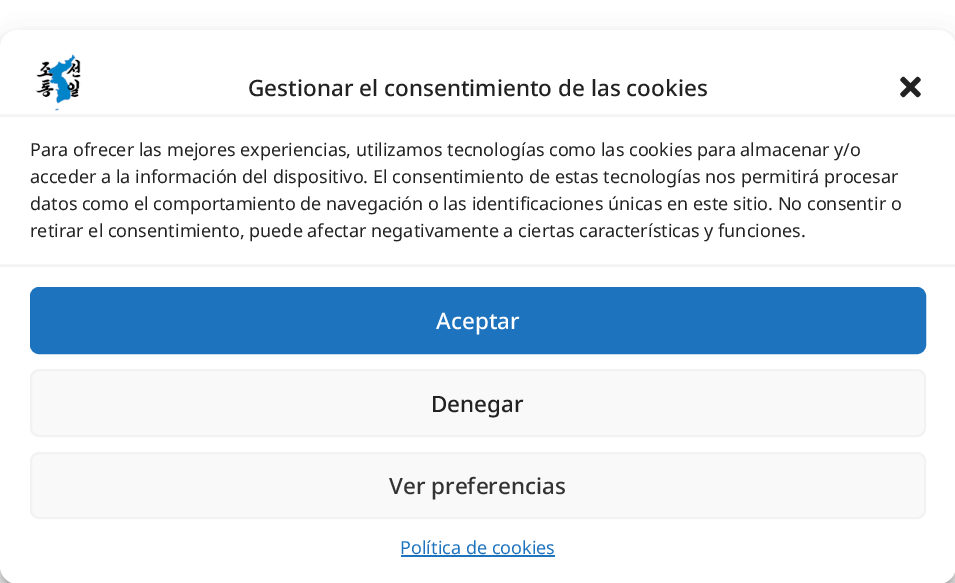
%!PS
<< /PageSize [955 583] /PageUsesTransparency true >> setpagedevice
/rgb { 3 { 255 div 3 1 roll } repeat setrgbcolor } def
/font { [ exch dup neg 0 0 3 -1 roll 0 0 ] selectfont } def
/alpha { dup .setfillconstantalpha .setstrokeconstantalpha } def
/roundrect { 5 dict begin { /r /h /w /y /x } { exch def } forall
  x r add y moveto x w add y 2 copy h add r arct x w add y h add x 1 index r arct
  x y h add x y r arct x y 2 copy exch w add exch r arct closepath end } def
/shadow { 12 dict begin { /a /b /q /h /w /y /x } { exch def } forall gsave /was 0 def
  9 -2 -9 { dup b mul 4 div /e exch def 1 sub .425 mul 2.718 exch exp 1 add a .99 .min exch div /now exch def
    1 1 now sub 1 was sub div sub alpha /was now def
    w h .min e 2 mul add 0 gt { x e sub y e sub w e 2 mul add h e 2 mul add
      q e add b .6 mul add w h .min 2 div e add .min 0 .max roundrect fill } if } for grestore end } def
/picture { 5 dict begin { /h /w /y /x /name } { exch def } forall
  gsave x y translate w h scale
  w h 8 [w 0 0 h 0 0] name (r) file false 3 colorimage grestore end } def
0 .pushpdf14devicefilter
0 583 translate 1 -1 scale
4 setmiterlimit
255 255 255 rgb
0 0 955 583 rectfill
0 0 0 rgb
0 39 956 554 18 4.5 0.23 shadow
0 45 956 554 18 15 0.19 shadow
255 255 255 rgb
0 30 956 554 18 roundrect fill
(img/1.rgb) 36 54 45 57 picture
(img/2.rgb) 900 76 21 22 picture
gsave
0 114 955 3 rectclip
0 0 0 rgb
0 114 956 5 0 2 0.05 shadow
grestore
gsave
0 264 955 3 rectclip
0 0 0 rgb
0 264 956 5 0 2 0.05 shadow
grestore
30 115 190 rgb
31 288 894 65 8 roundrect gsave fill grestore
2 setlinewidth
stroke
249 249 249 rgb
31 370 894 66 8 roundrect gsave fill grestore
242 242 242 rgb
stroke
249 249 249 rgb
31 453 894 65 8 roundrect gsave fill grestore
242 242 242 rgb
stroke
30 115 190 rgb
401 555 154 2 rectfill
/NotoSans-Medium 22.5 font
34 34 34 rgb
248 96 moveto (Gestionar el consentimiento de las cookies) show
/NotoSans-Regular 18 font
[
  [(Para ofrecer las mejores experiencias, utilizamos tecnologías como las cookies para almacenar y/o) 30 156]
  [(acceder a la información del dispositivo. El consentimiento de estas tecnologías nos permitirá procesar) 30 183]
  [(datos como el comportamiento de navegación o las identificaciones únicas en este sitio. No consentir o) 30 210]
  [(retirar el consentimiento, puede afectar negativamente a ciertas características y funciones.) 30 237]
] { aload pop moveto show } forall
/NotoSans-Medium 22.5 font
255 255 255 rgb
436 329 moveto (Aceptar) show
34 34 34 rgb
431 412 moveto (Denegar) show
51 51 51 rgb
389 494 moveto (Ver preferencias) show
/NotoSans-Regular 18 font
30 115 190 rgb
400 554 moveto (Política de cookies) show
.poppdf14devicefilter showpage
